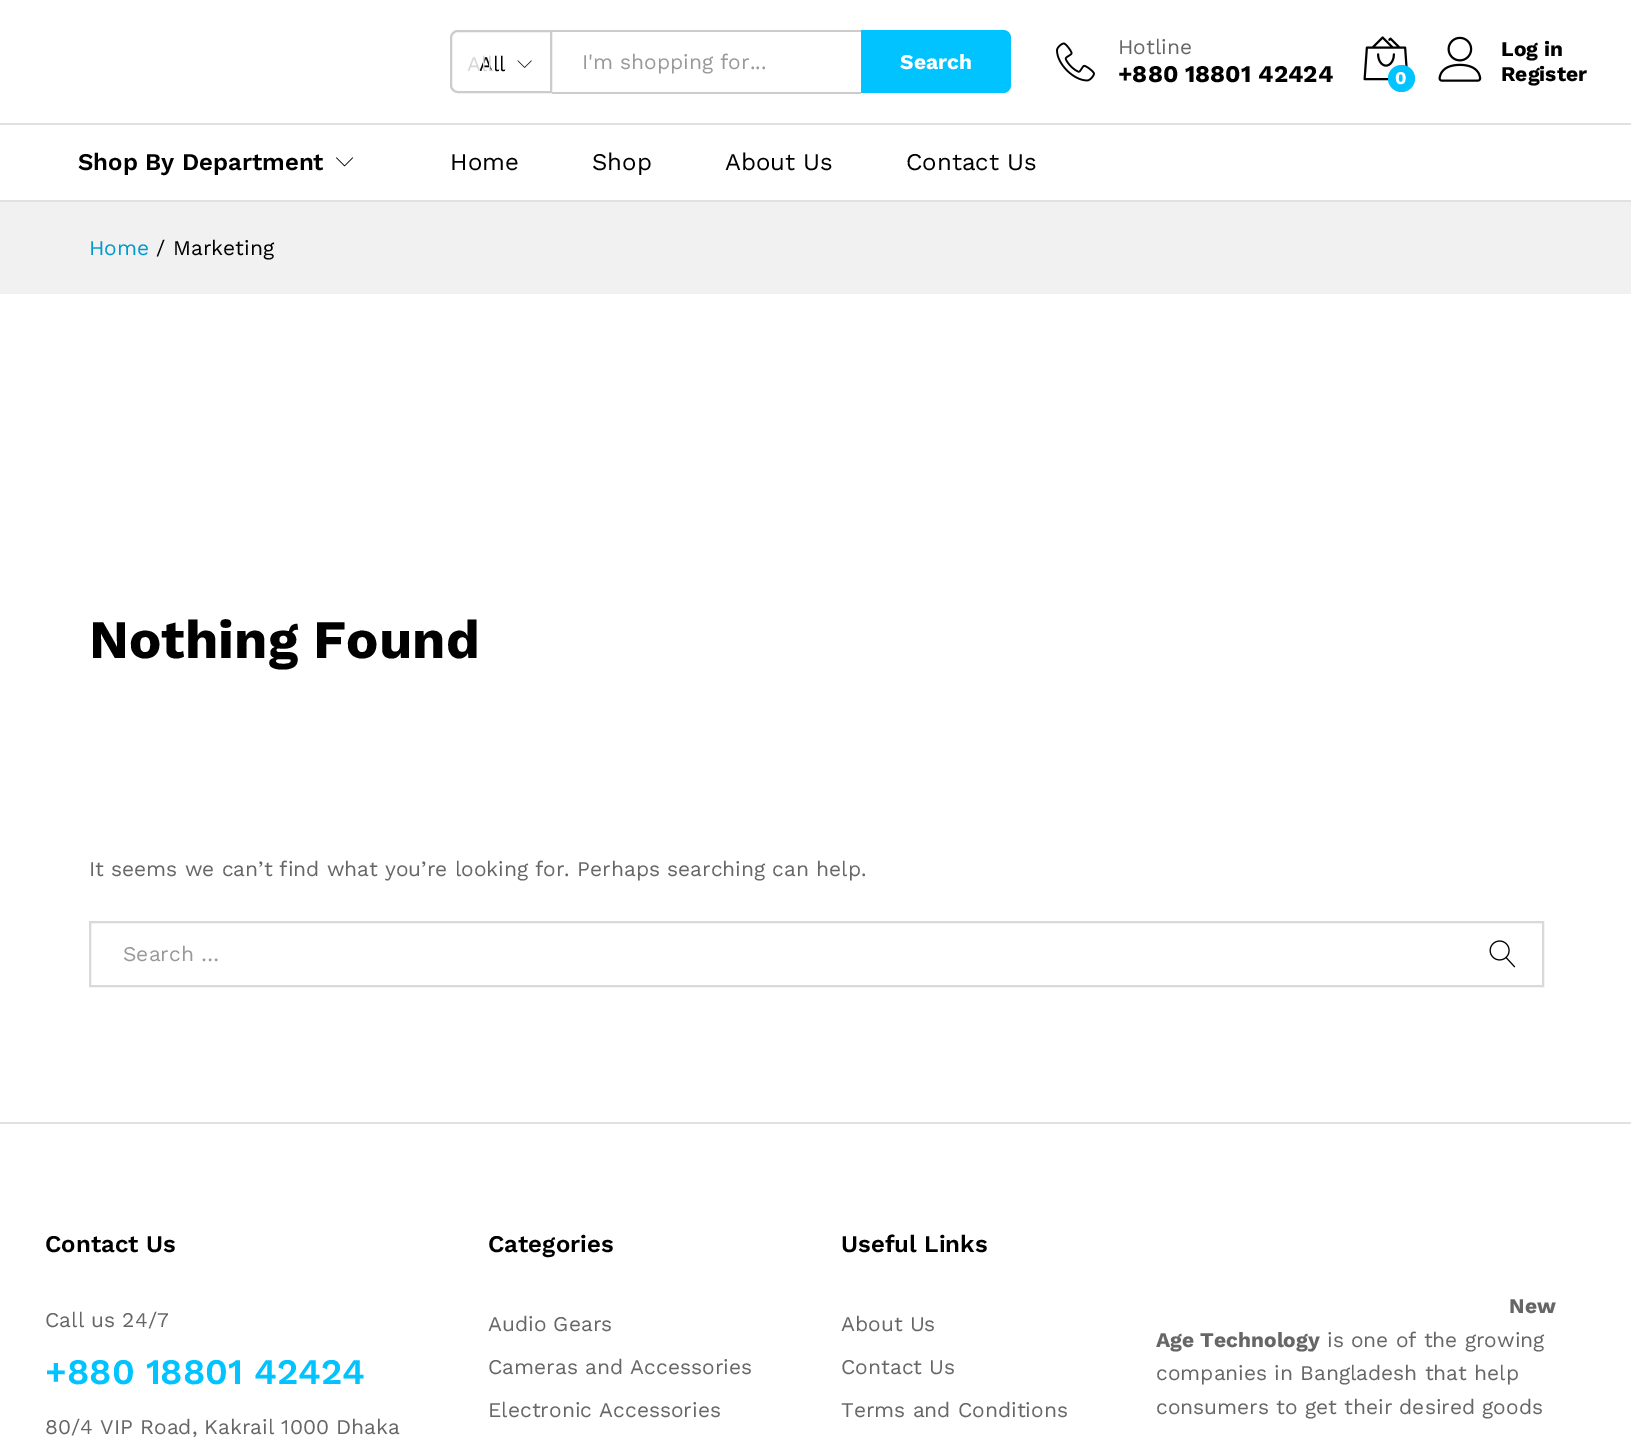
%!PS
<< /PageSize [1631 1441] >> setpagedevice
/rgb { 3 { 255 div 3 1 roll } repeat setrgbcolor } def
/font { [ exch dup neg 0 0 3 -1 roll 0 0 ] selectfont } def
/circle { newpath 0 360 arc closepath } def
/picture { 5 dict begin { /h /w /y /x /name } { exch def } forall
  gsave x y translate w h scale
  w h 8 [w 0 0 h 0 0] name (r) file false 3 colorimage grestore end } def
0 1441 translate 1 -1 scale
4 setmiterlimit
255 255 255 rgb
0 0 1631 1441 rectfill
204 204 204 rgb
2 setlinewidth
458 31 moveto 551 31 lineto 551 92 lineto 458 92 lineto 454 92 451 89 451 85 curveto 451 38 lineto 451 34 454 31 458 31 curveto closepath stroke
(img/1.rgb) 517 60 15 8 picture
552 30 309 2 rectfill
552 92 309 2 rectfill
0 195 255 rgb
861 30 moveto 1003 30 lineto 1007.5 30 1011 33.5 1011 38 curveto 1011 85 lineto 1011 89.5 1007.5 93 1003 93 curveto 861 93 lineto closepath fill
(img/2.rgb) 1056 42 39 40 picture
(img/3.rgb) 1363 36 45 45 picture
1401.5 78.5 13.5 circle fill
(img/4.rgb) 1438 36 44 46 picture
225 225 225 rgb
0 123 1631 2 rectfill
0 200 1631 2 rectfill
(img/5.rgb) 336 157 18 10 picture
241 241 241 rgb
0 202 1631 92 rectfill
217 217 217 rgb
90 922 1453 64 rectstroke
(img/6.rgb) 1489 940 27 28 picture
225 225 225 rgb
0 1122 1631 2 rectfill
/WorkSans-Regular 21 font
0 0 0 rgb
479 71 moveto (All) show
214 214 214 rgb
467 71 moveto (All) show
153 153 153 rgb
582 69 moveto (I'm shopping for...) show
/WorkSans-Bold 21 font
255 255 255 rgb
900 69 moveto (Search) show
/WorkSans-Regular 21 font
102 102 102 rgb
1118 54 moveto (Hotline) show
/WorkSans-Bold 24 font
0 0 0 rgb
1118 82 moveto (+880 18801 42424) show
/WorkSans-Bold 18 font
255 255 255 rgb
1395 84 moveto (0) show
/WorkSans-Bold 21 font
0 0 0 rgb
1501 56 moveto (Log in) show
1501 81 moveto (Register) show
/WorkSans-SemiBold 24 font
78 170 moveto (Shop By Department) show
/WorkSans-Regular 24 font
[
  [(Home) 450 170]
  [(Shop) 592 170]
  [(About Us) 725 170]
  [(Contact Us) 906 170]
] { aload pop moveto show } forall
/WorkSans-Regular 21 font
0 153 204 rgb
89 255 moveto (Home) show
0 0 0 rgb
156 255 moveto (/) show
173 255 moveto (Marketing) show
/WorkSans-Bold 54 font
89 658 moveto (Nothing Found) show
/WorkSans-Regular 21 font
102 102 102 rgb
89 876 moveto (It seems we can’t find what you’re looking for. Perhaps searching can help.) show
153 153 153 rgb
123 961 moveto (Search …) show
/WorkSans-SemiBold 24 font
0 0 0 rgb
45 1252 moveto (Contact Us) show
/WorkSans-Regular 21 font
102 102 102 rgb
45 1327 moveto (Call us 24/7) show
/WorkSans-SemiBold 36 font
0 195 255 rgb
45 1384 moveto (+880 18801 42424) show
/WorkSans-Regular 21 font
102 102 102 rgb
45 1434 moveto (80/4 VIP Road, Kakrail 1000 Dhaka) show
/WorkSans-SemiBold 24 font
0 0 0 rgb
488 1252 moveto (Categories) show
/WorkSans-Regular 21 font
102 102 102 rgb
[
  [(Audio Gears) 488 1331]
  [(Cameras and Accessories) 488 1374]
  [(Electronic Accessories) 488 1417]
] { aload pop moveto show } forall
/WorkSans-SemiBold 24 font
0 0 0 rgb
841 1252 moveto (Useful Links) show
/WorkSans-Regular 21 font
102 102 102 rgb
[
  [(About Us) 841 1331]
  [(Contact Us) 841 1374]
  [(Terms and Conditions) 841 1417]
] { aload pop moveto show } forall
/WorkSans-Bold 21 font
1509 1313 moveto (New) show
1156 1347 moveto (Age Technology) show
/WorkSans-Regular 21 font
[
  [(is one of the growing) 1327 1347]
  [(companies in Bangladesh that help) 1156 1380]
  [(consumers to get their desired goods) 1156 1414]
] { aload pop moveto show } forall
showpage
